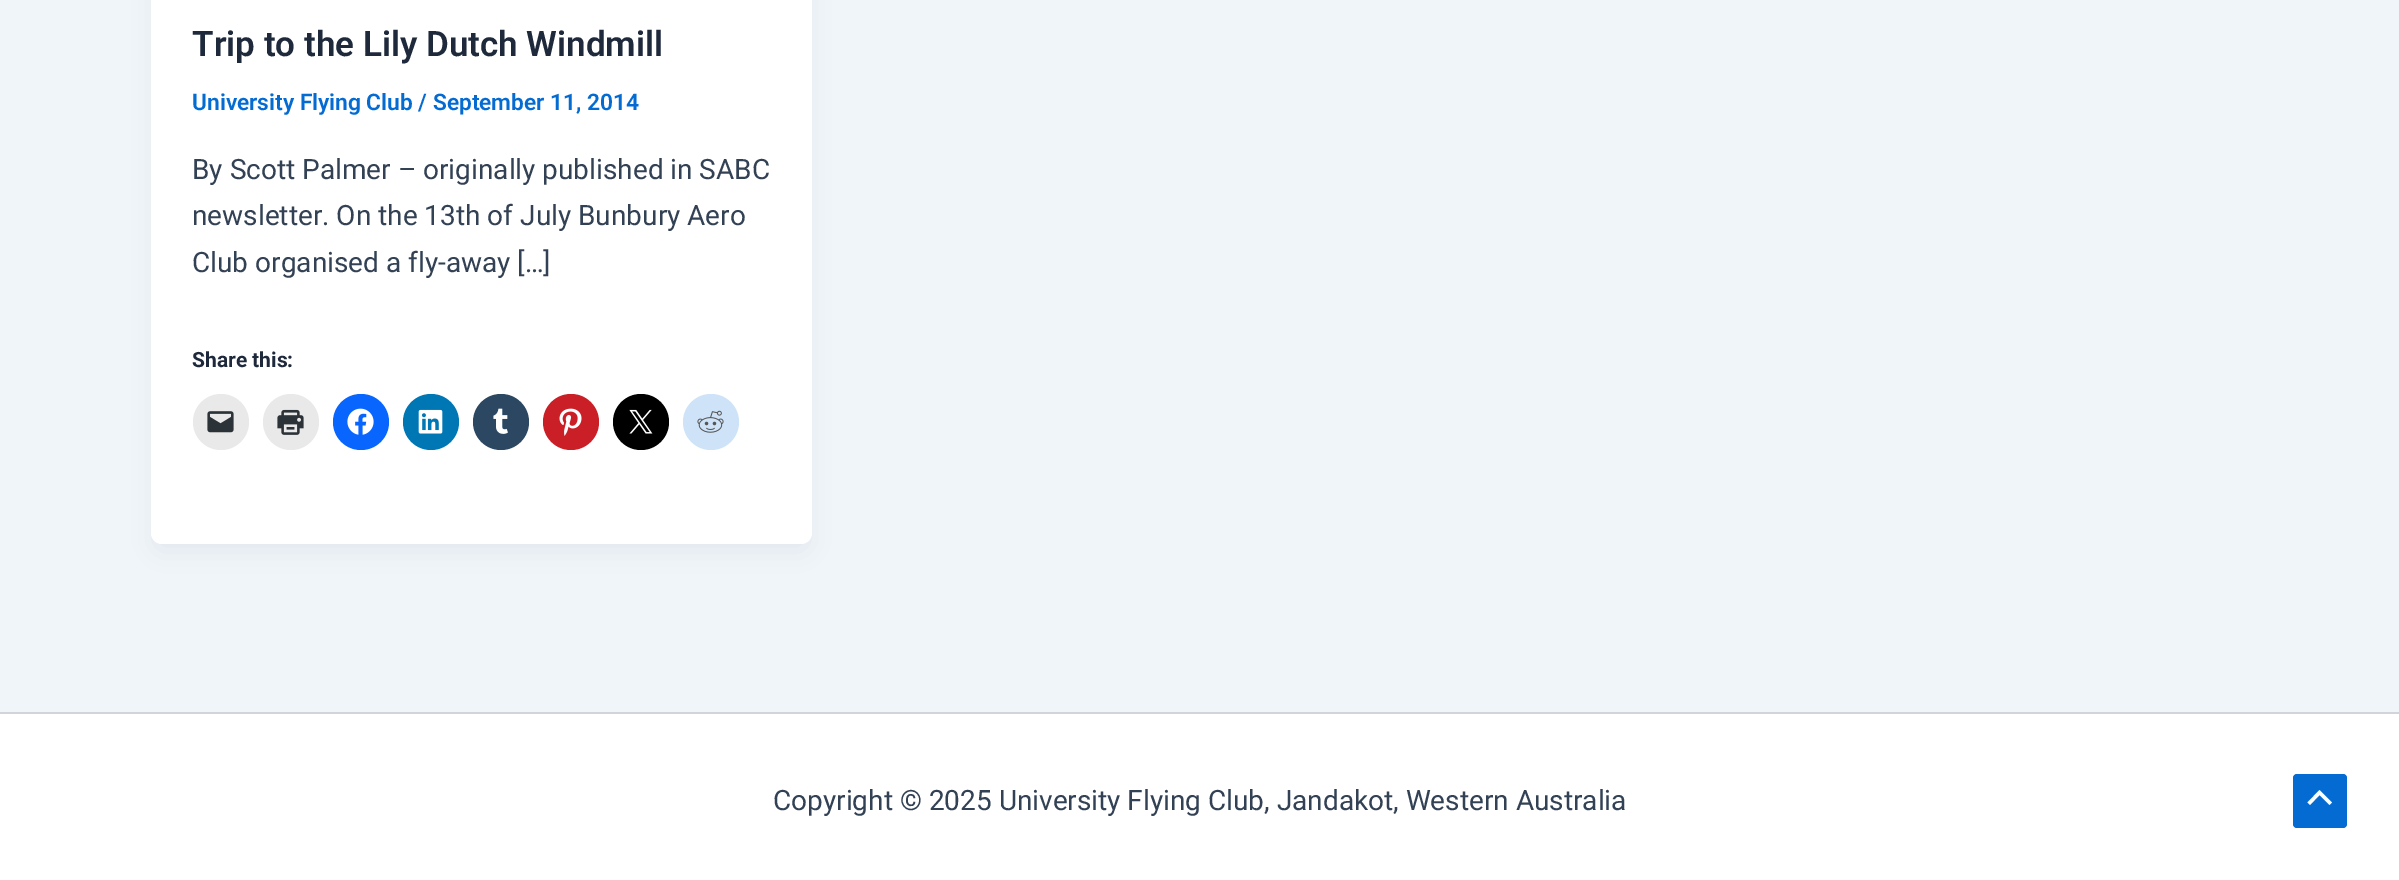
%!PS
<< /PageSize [2399 880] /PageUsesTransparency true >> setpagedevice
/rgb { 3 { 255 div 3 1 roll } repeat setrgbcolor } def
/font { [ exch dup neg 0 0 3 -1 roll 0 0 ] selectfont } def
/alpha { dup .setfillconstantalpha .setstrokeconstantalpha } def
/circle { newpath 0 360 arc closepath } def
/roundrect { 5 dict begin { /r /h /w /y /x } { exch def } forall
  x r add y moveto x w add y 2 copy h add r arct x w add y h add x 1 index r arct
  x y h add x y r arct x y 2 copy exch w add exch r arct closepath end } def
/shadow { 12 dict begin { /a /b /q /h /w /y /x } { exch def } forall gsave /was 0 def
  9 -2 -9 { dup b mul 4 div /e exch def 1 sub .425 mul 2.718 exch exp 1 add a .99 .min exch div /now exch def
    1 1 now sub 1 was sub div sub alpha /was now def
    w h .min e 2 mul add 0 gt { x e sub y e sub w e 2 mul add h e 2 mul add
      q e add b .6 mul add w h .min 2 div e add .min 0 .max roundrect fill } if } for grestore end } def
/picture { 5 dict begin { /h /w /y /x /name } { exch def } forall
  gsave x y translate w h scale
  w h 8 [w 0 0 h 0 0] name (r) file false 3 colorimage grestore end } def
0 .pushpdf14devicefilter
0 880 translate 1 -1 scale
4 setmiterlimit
240 245 250 rgb
0 0 2399 880 rectfill
16 24 40 rgb
154 -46 655 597 7 13 0.05 shadow
255 255 255 rgb
151 -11 661 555 11 roundrect fill
233 233 233 rgb
221 422 28 circle fill
(img/1.rgb) 207 411 27 22 picture
291 422 28 circle fill
(img/2.rgb) 277 409 27 26 picture
8 102 255 rgb
361 422 28 circle fill
(img/3.rgb) 347 408 27 27 picture
0 119 181 rgb
431 422 28 circle fill
(img/4.rgb) 418 409 25 25 picture
44 71 98 rgb
501 422 28 circle fill
(img/5.rgb) 493 408 15 26 picture
202 31 39 rgb
571 422 28 circle fill
(img/6.rgb) 559 408 23 28 picture
0 0 0 rgb
641 422 28 circle fill
(img/7.rgb) 629 409 24 25 picture
206 227 248 rgb
711 422 28 circle fill
(img/8.rgb) 697 410 27 23 picture
255 255 255 rgb
0 714 2399 166 rectfill
209 213 219 rgb
0 712 2399 2 rectfill
4 107 210 rgb
2293 774 54 54 4 roundrect fill
255 255 255 rgb
2332 802.5 moveto 2319.5 790 lineto 2307.5 802.5 lineto 2310 805 lineto 2319.5 795 lineto 2329.5 805 lineto closepath fill
/Roboto-SemiBold 35 font
30 41 59 rgb
192 56 moveto (Trip to the Lily Dutch Windmill) show
/Roboto-SemiBold 22.75 font
4 107 210 rgb
192 110 moveto (University Flying Club / September 11, 2014) show
/Roboto-Regular 28 font
51 65 85 rgb
[
  [(By Scott Palmer – originally published in SABC) 192 179]
  [(newsletter. On the 13th of July Bunbury Aero) 192 225]
  [(Club organised a fly-away […]) 192 272]
] { aload pop moveto show } forall
/Roboto-Bold 21 font
30 41 59 rgb
192 367 moveto (Share this:) show
/Roboto-Regular 28 font
51 65 85 rgb
773 810 moveto (Copyright © 2025 University Flying Club, Jandakot, Western Australia) show
.poppdf14devicefilter showpage
